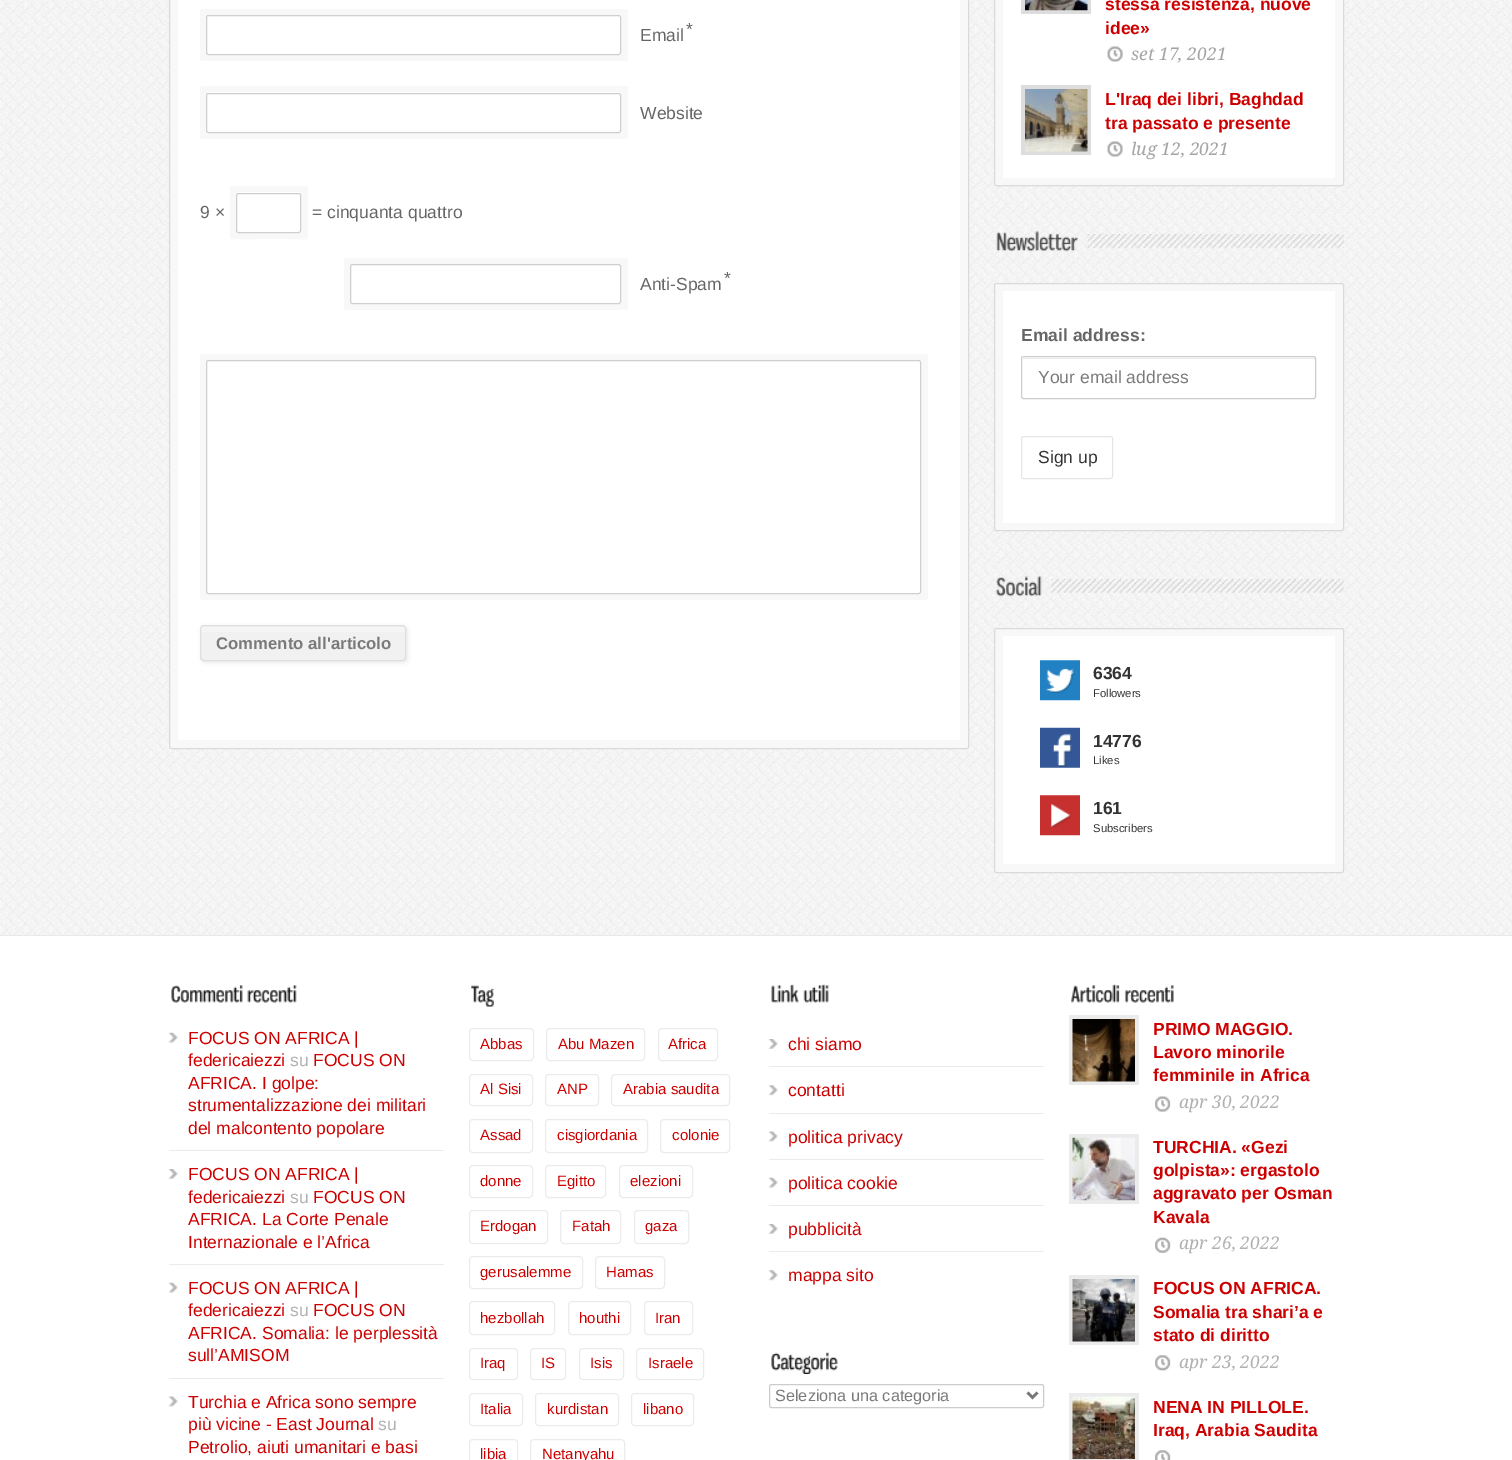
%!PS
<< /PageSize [1512 1460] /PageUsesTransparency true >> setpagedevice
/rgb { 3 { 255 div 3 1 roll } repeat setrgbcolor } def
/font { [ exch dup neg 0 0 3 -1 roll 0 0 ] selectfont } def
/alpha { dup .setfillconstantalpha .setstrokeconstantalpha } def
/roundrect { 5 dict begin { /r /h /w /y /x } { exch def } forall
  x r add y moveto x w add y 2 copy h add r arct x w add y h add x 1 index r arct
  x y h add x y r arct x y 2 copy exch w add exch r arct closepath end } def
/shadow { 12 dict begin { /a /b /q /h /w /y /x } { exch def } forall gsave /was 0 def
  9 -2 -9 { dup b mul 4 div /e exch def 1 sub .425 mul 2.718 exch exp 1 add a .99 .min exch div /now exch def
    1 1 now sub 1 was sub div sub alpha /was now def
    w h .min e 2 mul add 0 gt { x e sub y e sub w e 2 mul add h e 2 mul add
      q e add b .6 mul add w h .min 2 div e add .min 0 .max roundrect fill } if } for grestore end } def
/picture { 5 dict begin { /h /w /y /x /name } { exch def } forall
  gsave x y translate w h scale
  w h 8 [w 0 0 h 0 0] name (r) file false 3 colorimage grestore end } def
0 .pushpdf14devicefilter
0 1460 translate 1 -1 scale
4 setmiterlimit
255 255 255 rgb
0 0 1512 1460 rectfill
(img/1.rgb) 0 0 1512 935 picture
248 248 248 rgb
169.5 -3.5 799 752 2 roundrect gsave fill grestore
218 218 218 rgb
stroke
255 255 255 rgb
178 0 782 740 rectfill
248 248 248 rgb
202 21 moveto 201 21 200 22 200 24 curveto 200 58 lineto 200 60 201 61 202 61 curveto 612 61 lineto 614 61 615 60 615 58 curveto 615 55 lineto 209 55 lineto 207 55 206 54 206 52 curveto 206 21 lineto closepath fill
216 9 moveto 212 9 213 13 213 15 curveto 619 15 lineto 620 15 621 16 621 18 curveto 621 49 lineto 626 49 lineto 627 49 628 48 628 46 curveto 628 12 lineto 628 10 627 9 626 9 curveto closepath fill
206 22 moveto 206 58 lineto 206 60 207 61 208 61 curveto 618 61 lineto 620 61 621 60 621 58 curveto 621 54 lineto 621 54 620 55 619 55 curveto 209 55 lineto 207 55 206 54 206 52 curveto closepath fill
619 55 moveto 628 55 628 57 628 47 curveto 628 23 lineto 628 13 628 15 619 15 curveto 620 15 621 16 621 18 curveto 621 52 lineto 621 54 620 55 619 55 curveto closepath fill
213 55 moveto 213 58 lineto 213 60 214 61 216 61 curveto 626 61 lineto 627 61 628 60 628 58 curveto 628 24 lineto 628 22 627 21 626 21 curveto 621 21 lineto 621 52 lineto 621 54 620 55 619 55 curveto closepath fill
202 9 moveto 201 9 200 10 200 12 curveto 200 46 lineto 200 48 201 49 202 49 curveto 206 49 lineto 206 18 lineto 206 16 207 15 209 15 curveto 615 15 lineto 615 13 616 9 612 9 curveto closepath fill
255 255 255 rgb
206.5 15.5 414 39 2 roundrect gsave fill grestore
207 207 207 rgb
stroke
248 248 248 rgb
202 99 moveto 201 99 200 100 200 102 curveto 200 136 lineto 200 138 201 139 202 139 curveto 612 139 lineto 614 139 615 138 615 136 curveto 615 132 lineto 209 132 lineto 207 132 206 131 206 130 curveto 206 99 lineto closepath fill
216 86 moveto 212 86 213 90 213 92 curveto 619 92 lineto 620 92 621 94 621 95 curveto 621 126 lineto 626 126 lineto 627 126 628 125 628 124 curveto 628 88 lineto 628 87 627 86 626 86 curveto closepath fill
206 100 moveto 206 136 lineto 206 138 207 139 208 139 curveto 618 139 lineto 620 139 621 138 621 136 curveto 621 131 lineto 621 132 620 132 619 132 curveto 209 132 lineto 207 132 206 131 206 130 curveto closepath fill
214 132 moveto 216 133 lineto 626 133 lineto 627 133 628 132 628 130 curveto 628 96 lineto 628 94 627 93 626 93 curveto 620 93 lineto 621 93 621 94 621 95 curveto 621 130 lineto 621 131 620 132 619 132 curveto closepath fill
213 132 moveto 213 136 lineto 213 138 214 139 216 139 curveto 626 139 lineto 627 139 628 138 628 136 curveto 628 102 lineto 628 100 627 99 626 99 curveto 621 99 lineto 621 130 lineto 621 131 620 132 619 132 curveto closepath fill
202 86 moveto 201 86 200 87 200 88 curveto 200 124 lineto 200 125 201 126 202 126 curveto 206 126 lineto 206 95 lineto 206 94 207 92 209 92 curveto 615 92 lineto 615 90 616 86 612 86 curveto closepath fill
255 255 255 rgb
206.5 93.5 414 39 2 roundrect gsave fill grestore
207 207 207 rgb
stroke
248 248 248 rgb
232 199 moveto 231 199 230 200 230 202 curveto 230 236 lineto 230 238 231 239 232 239 curveto 292 239 lineto 294 239 295 238 295 236 curveto 295 232 lineto 239 232 lineto 237 232 236 231 236 230 curveto 236 199 lineto closepath fill
246 186 moveto 242 186 243 190 243 192 curveto 299 192 lineto 300 192 301 194 301 195 curveto 301 226 lineto 306 226 lineto 307 226 308 225 308 224 curveto 308 188 lineto 308 187 307 186 306 186 curveto closepath fill
236 200 moveto 236 225 lineto 236 241 233 239 248 239 curveto 288 239 lineto 301 239 301 241 301 231 curveto 300 232 lineto 249 232 lineto 237 232 236 235 236 225 curveto closepath fill
244 232 moveto 246 233 lineto 306 233 lineto 307 233 308 232 308 230 curveto 308 196 lineto 308 194 307 193 306 193 curveto 300 193 lineto 301 193 301 194 301 195 curveto 301 230 lineto 301 231 300 232 299 232 curveto closepath fill
243 232 moveto 243 242 245 239 256 239 curveto 296 239 lineto 308 239 308 242 308 231 curveto 308 207 lineto 308 199 309 199 301 199 curveto 301 230 lineto 301 231 300 232 299 232 curveto closepath fill
232 186 moveto 231 186 230 187 230 188 curveto 230 224 lineto 230 225 231 226 232 226 curveto 236 226 lineto 236 195 lineto 236 194 237 192 239 192 curveto 295 192 lineto 295 190 296 186 292 186 curveto closepath fill
255 255 255 rgb
236.5 193.5 64 39 2 roundrect gsave fill grestore
207 207 207 rgb
stroke
248 248 248 rgb
346 270 moveto 345 270 344 271 344 272 curveto 344 308 lineto 344 309 345 310 346 310 curveto 612 310 lineto 614 310 615 309 615 308 curveto 615 304 lineto 352 304 lineto 351 304 350 303 350 301 curveto 350 270 lineto closepath fill
358 258 moveto 355 258 356 262 356 264 curveto 619 264 lineto 620 264 621 265 621 266 curveto 621 298 lineto 626 298 lineto 627 298 628 297 628 296 curveto 628 260 lineto 628 259 627 258 626 258 curveto closepath fill
350 301 moveto 350 308 lineto 350 309 351 310 352 310 curveto 618 310 lineto 620 310 621 309 621 308 curveto 621 302 lineto 621 303 620 304 619 304 curveto 352 304 lineto 351 304 350 303 350 301 curveto closepath fill
357 304 moveto 626 304 lineto 629 304 628 297 628 296 curveto 628 272 lineto 628 263 628 264 620 264 curveto 621 264 621 265 621 266 curveto 621 301 lineto 621 303 620 304 619 304 curveto closepath fill
356 304 moveto 356 308 lineto 356 309 357 310 358 310 curveto 626 310 lineto 627 310 628 309 628 308 curveto 628 272 lineto 628 271 627 270 626 270 curveto 621 270 lineto 621 301 lineto 621 303 620 304 619 304 curveto closepath fill
346 258 moveto 345 258 344 259 344 260 curveto 344 296 lineto 344 297 345 298 346 298 curveto 350 298 lineto 350 266 lineto 350 265 351 264 352 264 curveto 615 264 lineto 615 262 616 258 612 258 curveto closepath fill
255 255 255 rgb
350.5 264.5 270 39 2 roundrect gsave fill grestore
207 207 207 rgb
stroke
248 248 248 rgb
202 366 moveto 201 366 200 367 200 368 curveto 200 598 lineto 200 599 201 600 202 600 curveto 912 600 lineto 914 600 915 599 915 598 curveto 915 594 lineto 209 594 lineto 207 594 206 593 206 591 curveto 206 366 lineto closepath fill
216 354 moveto 212 354 213 358 213 360 curveto 919 360 lineto 920 360 921 361 921 362 curveto 921 588 lineto 926 588 lineto 927 588 928 587 928 586 curveto 928 356 lineto 928 355 927 354 926 354 curveto closepath fill
206 367 moveto 206 598 lineto 206 599 207 600 208 600 curveto 918 600 lineto 920 600 921 599 921 598 curveto 921 592 lineto 921 593 920 594 919 594 curveto 209 594 lineto 207 594 206 593 206 591 curveto closepath fill
214 594 moveto 926 594 lineto 927 594 928 593 928 592 curveto 928 362 lineto 928 361 927 360 926 360 curveto 919 360 lineto 920 360 921 361 921 362 curveto 921 591 lineto 921 593 920 594 919 594 curveto closepath fill
213 594 moveto 213 598 lineto 213 599 214 600 216 600 curveto 926 600 lineto 927 600 928 599 928 598 curveto 928 368 lineto 928 367 927 366 926 366 curveto 921 366 lineto 921 591 lineto 921 593 920 594 919 594 curveto closepath fill
202 354 moveto 201 354 200 355 200 356 curveto 200 586 lineto 200 587 201 588 202 588 curveto 206 588 lineto 206 362 lineto 206 361 207 360 209 360 curveto 915 360 lineto 915 358 916 354 912 354 curveto closepath fill
255 255 255 rgb
206.5 360.5 714 233 2 roundrect gsave fill grestore
207 207 207 rgb
stroke
236 236 236 rgb
201 626 207 37 4 2 1 shadow
241 241 241 rgb
200 625 206 36 4 roundrect fill
0.3 alpha
255 255 255 rgb
200 627 206 5 rectfill
1 alpha
222 222 222 rgb
200.5 625.5 205 35 3.5 roundrect stroke
248 248 248 rgb
994.5 -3.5 349 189 2 roundrect gsave fill grestore
218 218 218 rgb
stroke
255 255 255 rgb
1003 0 332 178 rectfill
221 221 221 rgb
1021 0 70 14 rectfill
(img/2.rgb) 1025 0 63 11 picture
(img/3.rgb) 1107 46 16 16 picture
1021 85 70 70 rectfill
(img/4.rgb) 1025 89 63 63 picture
(img/3.rgb) 1107 141 16 16 picture
(img/5.rgb) 996 231 82 21 picture
(img/6.rgb) 1087 234 257 14 picture
248 248 248 rgb
994.5 283.5 349 247 2 roundrect gsave fill grestore
218 218 218 rgb
stroke
255 255 255 rgb
1003 291 332 232 rectfill
236 236 236 rgb
1024 359 moveto 1314 359 lineto 1315 360 lineto 1315 359 lineto 1315 358 1315 358 1314 358 curveto 1024 358 lineto 1023 358 1023 358 1023 359 curveto closepath fill
204 204 204 rgb
1021.5 356.5 294 42 2 roundrect stroke
230 230 230 rgb
1021.5 436.5 91 42 2 roundrect stroke
(img/7.rgb) 996 576 46 21 picture
(img/8.rgb) 1051 579 293 14 picture
248 248 248 rgb
994.5 628.5 349 244 2 roundrect gsave fill grestore
218 218 218 rgb
stroke
255 255 255 rgb
1003 636 332 228 rectfill
(img/9.rgb) 1040 660 40 41 picture
(img/10.rgb) 1040 727 40 41 picture
(img/11.rgb) 1040 795 40 41 picture
233 233 233 rgb
0 935 1512 1 rectfill
(img/12.rgb) 171 985 72 18 picture
(img/13.rgb) 247 985 50 18 picture
(img/14.rgb) 168 1032 10 11 picture
235 235 235 rgb
169 1150 275 1 rectfill
(img/15.rgb) 168 1169 10 10 picture
169 1264 275 1 rectfill
(img/14.rgb) 168 1282 10 11 picture
169 1378 275 1 rectfill
(img/16.rgb) 168 1396 10 11 picture
(img/17.rgb) 471 985 23 22 picture
469.5 1028.5 64 32 3.5 roundrect stroke
546.5 1028.5 98 32 3.5 roundrect stroke
658.5 1028.5 59 32 3.5 roundrect stroke
469.5 1074.5 63 31 3.5 roundrect stroke
545.5 1074.5 53 31 3.5 roundrect stroke
611.5 1074.5 118 31 3.5 roundrect stroke
469.5 1119.5 63 33 3.5 roundrect stroke
545.5 1119.5 102 33 3.5 roundrect stroke
660.5 1119.5 69 33 3.5 roundrect stroke
469.5 1165.5 63 32 3.5 roundrect stroke
545.5 1165.5 60 32 3.5 roundrect stroke
619.5 1165.5 73 32 3.5 roundrect stroke
469.5 1210.5 78 33 3.5 roundrect stroke
560.5 1210.5 60 33 3.5 roundrect stroke
634.5 1210.5 54 33 3.5 roundrect stroke
469.5 1256.5 113 32 3.5 roundrect stroke
595.5 1256.5 69 32 3.5 roundrect stroke
469.5 1301.5 85 33 3.5 roundrect stroke
568.5 1301.5 62 33 3.5 roundrect stroke
644.5 1301.5 48 33 3.5 roundrect stroke
469.5 1348.5 48 31 3.5 roundrect stroke
530.5 1348.5 35 31 3.5 roundrect stroke
579.5 1348.5 44 31 3.5 roundrect stroke
636.5 1348.5 67 31 3.5 roundrect stroke
469.5 1393.5 53 32 3.5 roundrect stroke
535.5 1393.5 83 32 3.5 roundrect stroke
631.5 1393.5 62 32 3.5 roundrect stroke
469.5 1439.5 48 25 3.5 roundrect stroke
530.5 1439.5 94 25 3.5 roundrect stroke
(img/18.rgb) 771 984 28 19 picture
(img/19.rgb) 803 984 26 19 picture
(img/20.rgb) 768 1039 10 10 picture
769 1066 275 1 rectfill
(img/21.rgb) 768 1085 10 11 picture
769 1113 275 1 rectfill
(img/22.rgb) 768 1131 10 11 picture
769 1159 275 1 rectfill
(img/23.rgb) 768 1177 10 11 picture
769 1205 275 1 rectfill
(img/20.rgb) 768 1224 10 10 picture
769 1251 275 1 rectfill
(img/21.rgb) 768 1270 10 11 picture
(img/24.rgb) 771 1352 67 22 picture
204 204 204 rgb
769.5 1384.5 274 23 2 roundrect stroke
119 119 119 rgb
2.5 setlinewidth
1027.5 1392.5 moveto 1032.5 1397.5 lineto 1037.5 1392.5 lineto stroke
(img/25.rgb) 1071 984 49 19 picture
(img/26.rgb) 1124 985 50 18 picture
235 235 235 rgb
1069 1015 70 70 rectfill
(img/27.rgb) 1072 1019 63 63 picture
(img/28.rgb) 1155 1096 16 16 picture
1069 1134 70 70 rectfill
(img/29.rgb) 1072 1137 63 64 picture
(img/30.rgb) 1155 1237 16 16 picture
1069 1275 70 70 rectfill
(img/31.rgb) 1072 1279 63 63 picture
(img/32.rgb) 1155 1355 16 16 picture
1069 1393 70 67 rectfill
(img/33.rgb) 1072 1396 63 63 picture
(img/34.rgb) 1155 1450 16 10 picture
/LiberationSans-Regular 17.5 font
102 102 102 rgb
[
  [(*) 686 35]
  [(Email) 640 41]
  [(Website) 640 119]
  [(9 ×) 200 218]
  [(= cinquanta quattro) 312 218]
  [(*) 724 284]
  [(Anti-Spam) 640 290]
] { aload pop moveto show } forall
/LiberationSans-Bold 16.75 font
122 122 122 rgb
216 649 moveto (Commento all'articolo) show
/LiberationSans-Bold 17.5 font
204 0 0 rgb
1105 10 moveto (stessa resistenza, nuove) show
1105 34 moveto (idee») show
/DroidSerif-Italic 17.5 font
164 164 164 rgb
1131 60 moveto (set 17, 2021) show
/LiberationSans-Bold 17.5 font
204 0 0 rgb
1105 105 moveto (L'Iraq dei libri, Baghdad) show
1105 129 moveto (tra passato e presente) show
/DroidSerif-Italic 17.5 font
164 164 164 rgb
1131 155 moveto (lug 12, 2021) show
/LiberationSans-Bold 17.5 font
102 102 102 rgb
1021 341 moveto (Email address:) show
/LiberationSans-Regular 17.5 font
122 122 122 rgb
1038 383 moveto (Your email address) show
51 51 51 rgb
1038 463 moveto (Sign up) show
/LiberationSans-Bold 17.5 font
1093 679 moveto (6364) show
/LiberationSans-Regular 11.25 font
1093 697 moveto (Followers) show
/LiberationSans-Bold 17.5 font
1093 747 moveto (14776) show
/LiberationSans-Regular 11.25 font
1093 764 moveto (Likes) show
/LiberationSans-Bold 17.5 font
1093 814 moveto (161) show
/LiberationSans-Regular 11.25 font
1093 832 moveto (Subscribers) show
/LiberationSans-Regular 17.5 font
204 0 0 rgb
188 1044 moveto (FOCUS ON AFRICA |) show
188 1066 moveto (federicaiezzi) show
177 177 177 rgb
290 1066 moveto (su) show
204 0 0 rgb
[
  [(FOCUS ON) 313 1066]
  [(AFRICA. I golpe:) 188 1089]
  [(strumentalizzazione dei militari) 188 1111]
  [(del malcontento popolare) 188 1134]
  [(FOCUS ON AFRICA |) 188 1180]
  [(federicaiezzi) 188 1203]
] { aload pop moveto show } forall
177 177 177 rgb
290 1203 moveto (su) show
204 0 0 rgb
[
  [(FOCUS ON) 313 1203]
  [(AFRICA. La Corte Penale) 188 1225]
  [(Internazionale e l’Africa) 188 1248]
  [(FOCUS ON AFRICA |) 188 1294]
  [(federicaiezzi) 188 1316]
] { aload pop moveto show } forall
177 177 177 rgb
290 1316 moveto (su) show
204 0 0 rgb
[
  [(FOCUS ON) 313 1316]
  [(AFRICA. Somalia: le perplessità) 188 1339]
  [(sull’AMISOM) 188 1361]
  [(Turchia e Africa sono sempre) 188 1408]
  [(più vicine - East Journal) 188 1430]
] { aload pop moveto show } forall
177 177 177 rgb
378 1430 moveto (su) show
204 0 0 rgb
188 1453 moveto (Petrolio, aiuti umanitari e basi) show
/LiberationSans-Regular 15 font
[
  [(Abbas) 480 1049]
  [(Abu Mazen) 558 1049]
  [(Africa) 668 1049]
  [(Al Sisi) 480 1094]
  [(ANP) 557 1094]
  [(Arabia saudita) 623 1094]
  [(Assad) 480 1140]
  [(cisgiordania) 557 1140]
  [(colonie) 672 1140]
  [(donne) 480 1186]
  [(Egitto) 557 1186]
  [(elezioni) 630 1186]
  [(Erdogan) 480 1231]
  [(Fatah) 572 1231]
  [(gaza) 645 1231]
  [(gerusalemme) 480 1277]
  [(Hamas) 606 1277]
  [(hezbollah) 480 1323]
  [(houthi) 579 1323]
  [(Iran) 655 1323]
  [(Iraq) 480 1368]
  [(IS) 541 1368]
  [(Isis) 590 1368]
  [(Israele) 648 1368]
  [(Italia) 480 1414]
  [(kurdistan) 547 1414]
  [(libano) 643 1414]
  [(libia) 480 1459]
  [(Netanyahu) 542 1459]
] { aload pop moveto show } forall
/LiberationSans-Regular 17.5 font
[
  [(chi siamo) 788 1050]
  [(contatti) 788 1096]
  [(politica privacy) 788 1143]
  [(politica cookie) 788 1189]
  [(pubblicità) 788 1235]
  [(mappa sito) 788 1281]
] { aload pop moveto show } forall
/LiberationSans-Regular 16.25 font
122 122 122 rgb
775 1401 moveto (Seleziona una categoria) show
/LiberationSans-Bold 17.5 font
204 0 0 rgb
[
  [(PRIMO MAGGIO.) 1153 1035]
  [(Lavoro minorile) 1153 1058]
  [(femminile in Africa) 1153 1081]
] { aload pop moveto show } forall
/DroidSerif-Italic 17.5 font
177 177 177 rgb
1179 1108 moveto (apr 30, 2022) show
/LiberationSans-Bold 17.5 font
204 0 0 rgb
[
  [(TURCHIA. «Gezi) 1153 1153]
  [(golpista»: ergastolo) 1153 1176]
  [(aggravato per Osman) 1153 1199]
  [(Kavala) 1153 1223]
] { aload pop moveto show } forall
/DroidSerif-Italic 17.5 font
177 177 177 rgb
1179 1249 moveto (apr 26, 2022) show
/LiberationSans-Bold 17.5 font
204 0 0 rgb
[
  [(FOCUS ON AFRICA.) 1153 1294]
  [(Somalia tra shari’a e) 1153 1318]
  [(stato di diritto) 1153 1341]
] { aload pop moveto show } forall
gsave
1153 1275 191 96 rectclip
/DroidSerif-Italic 17.5 font
177 177 177 rgb
1179 1368 moveto (apr 23, 2022) show
grestore
1153 1413 moveto (NENA IN PILLOLE.) show
1153 1436 moveto (Iraq, Arabia Saudita) show
.poppdf14devicefilter showpage
